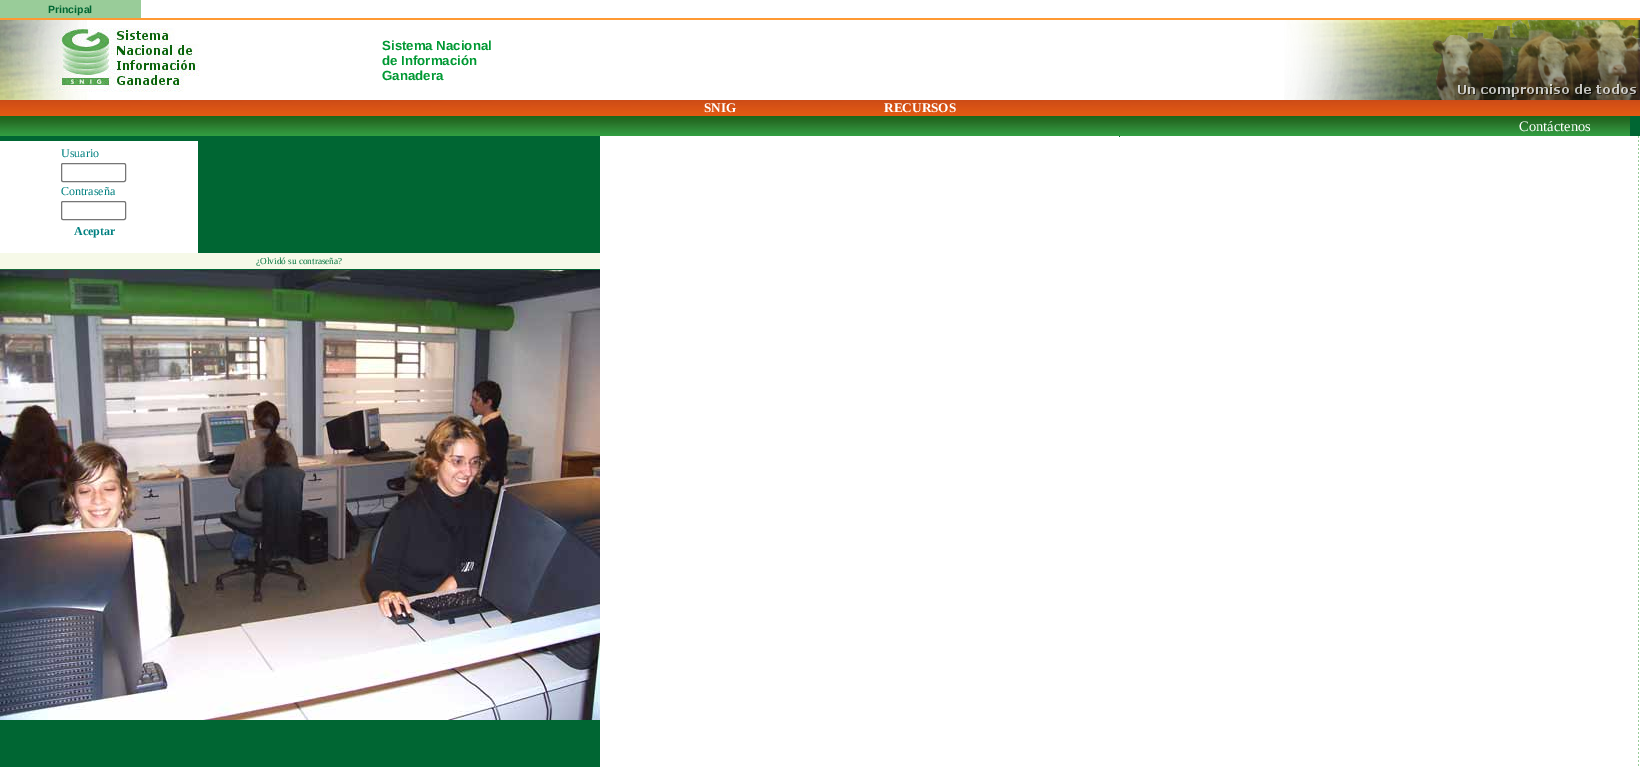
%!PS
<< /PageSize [1640 767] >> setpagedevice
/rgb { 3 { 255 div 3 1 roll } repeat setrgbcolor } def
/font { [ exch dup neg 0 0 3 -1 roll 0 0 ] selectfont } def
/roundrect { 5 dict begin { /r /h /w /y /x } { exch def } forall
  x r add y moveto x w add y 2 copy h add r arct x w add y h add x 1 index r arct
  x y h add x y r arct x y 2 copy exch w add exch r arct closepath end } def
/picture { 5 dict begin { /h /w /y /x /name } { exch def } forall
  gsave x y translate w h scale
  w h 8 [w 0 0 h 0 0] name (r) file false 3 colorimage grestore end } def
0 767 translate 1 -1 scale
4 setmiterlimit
255 255 255 rgb
0 0 1640 767 rectfill
153 204 153 rgb
0 0 141 18 rectfill
255 153 51 rgb
0 18 1640 2 rectfill
(img/1.rgb) 0 20 200 80 picture
(img/2.rgb) 1284 20 356 80 picture
0 102 51 rgb
1630 116 10 20 rectfill
(img/3.rgb) 0 100 1640 16 picture
(img/4.rgb) 0 116 1630 20 picture
0 136 600 631 rectfill
255 255 255 rgb
0 141 198 112 rectfill
118 118 118 rgb
61.5 163.5 64 18 1.5 roundrect stroke
61.5 201.5 64 18 1.5 roundrect stroke
246 249 232 rgb
0 253 600 16 rectfill
22 104 56 rgb
0 269 170 1 rectfill
(img/5.rgb) 0 270 600 450 picture
0 102 51 rgb
1119 136 1 1 rectfill
(img/6.rgb) 1638 136 1 630 picture
/LiberationSans-Bold 10.5 font
48 13 moveto (Principal) show
/LiberationSans-Bold 13.25 font
0 153 51 rgb
[
  [(Sistema Nacional) 382 50]
  [(de Información) 382 65]
  [(Ganadera) 382 80]
] { aload pop moveto show } forall
/LiberationSerif-Bold 13.25 font
255 255 255 rgb
704 112 moveto (SNIG) show
884 112 moveto (RECURSOS) show
/LiberationSerif-Regular 14.5 font
1519 131 moveto (Contáctenos) show
/LiberationSerif-Regular 12 font
0 128 128 rgb
61 157 moveto (Usuario) show
61 195 moveto (Contraseña) show
/LiberationSerif-Bold 12 font
74 235 moveto (Aceptar) show
/LiberationSerif-Regular 9.25 font
0 114 61 rgb
256 264 moveto (¿Olvidó su contraseña?) show
showpage
